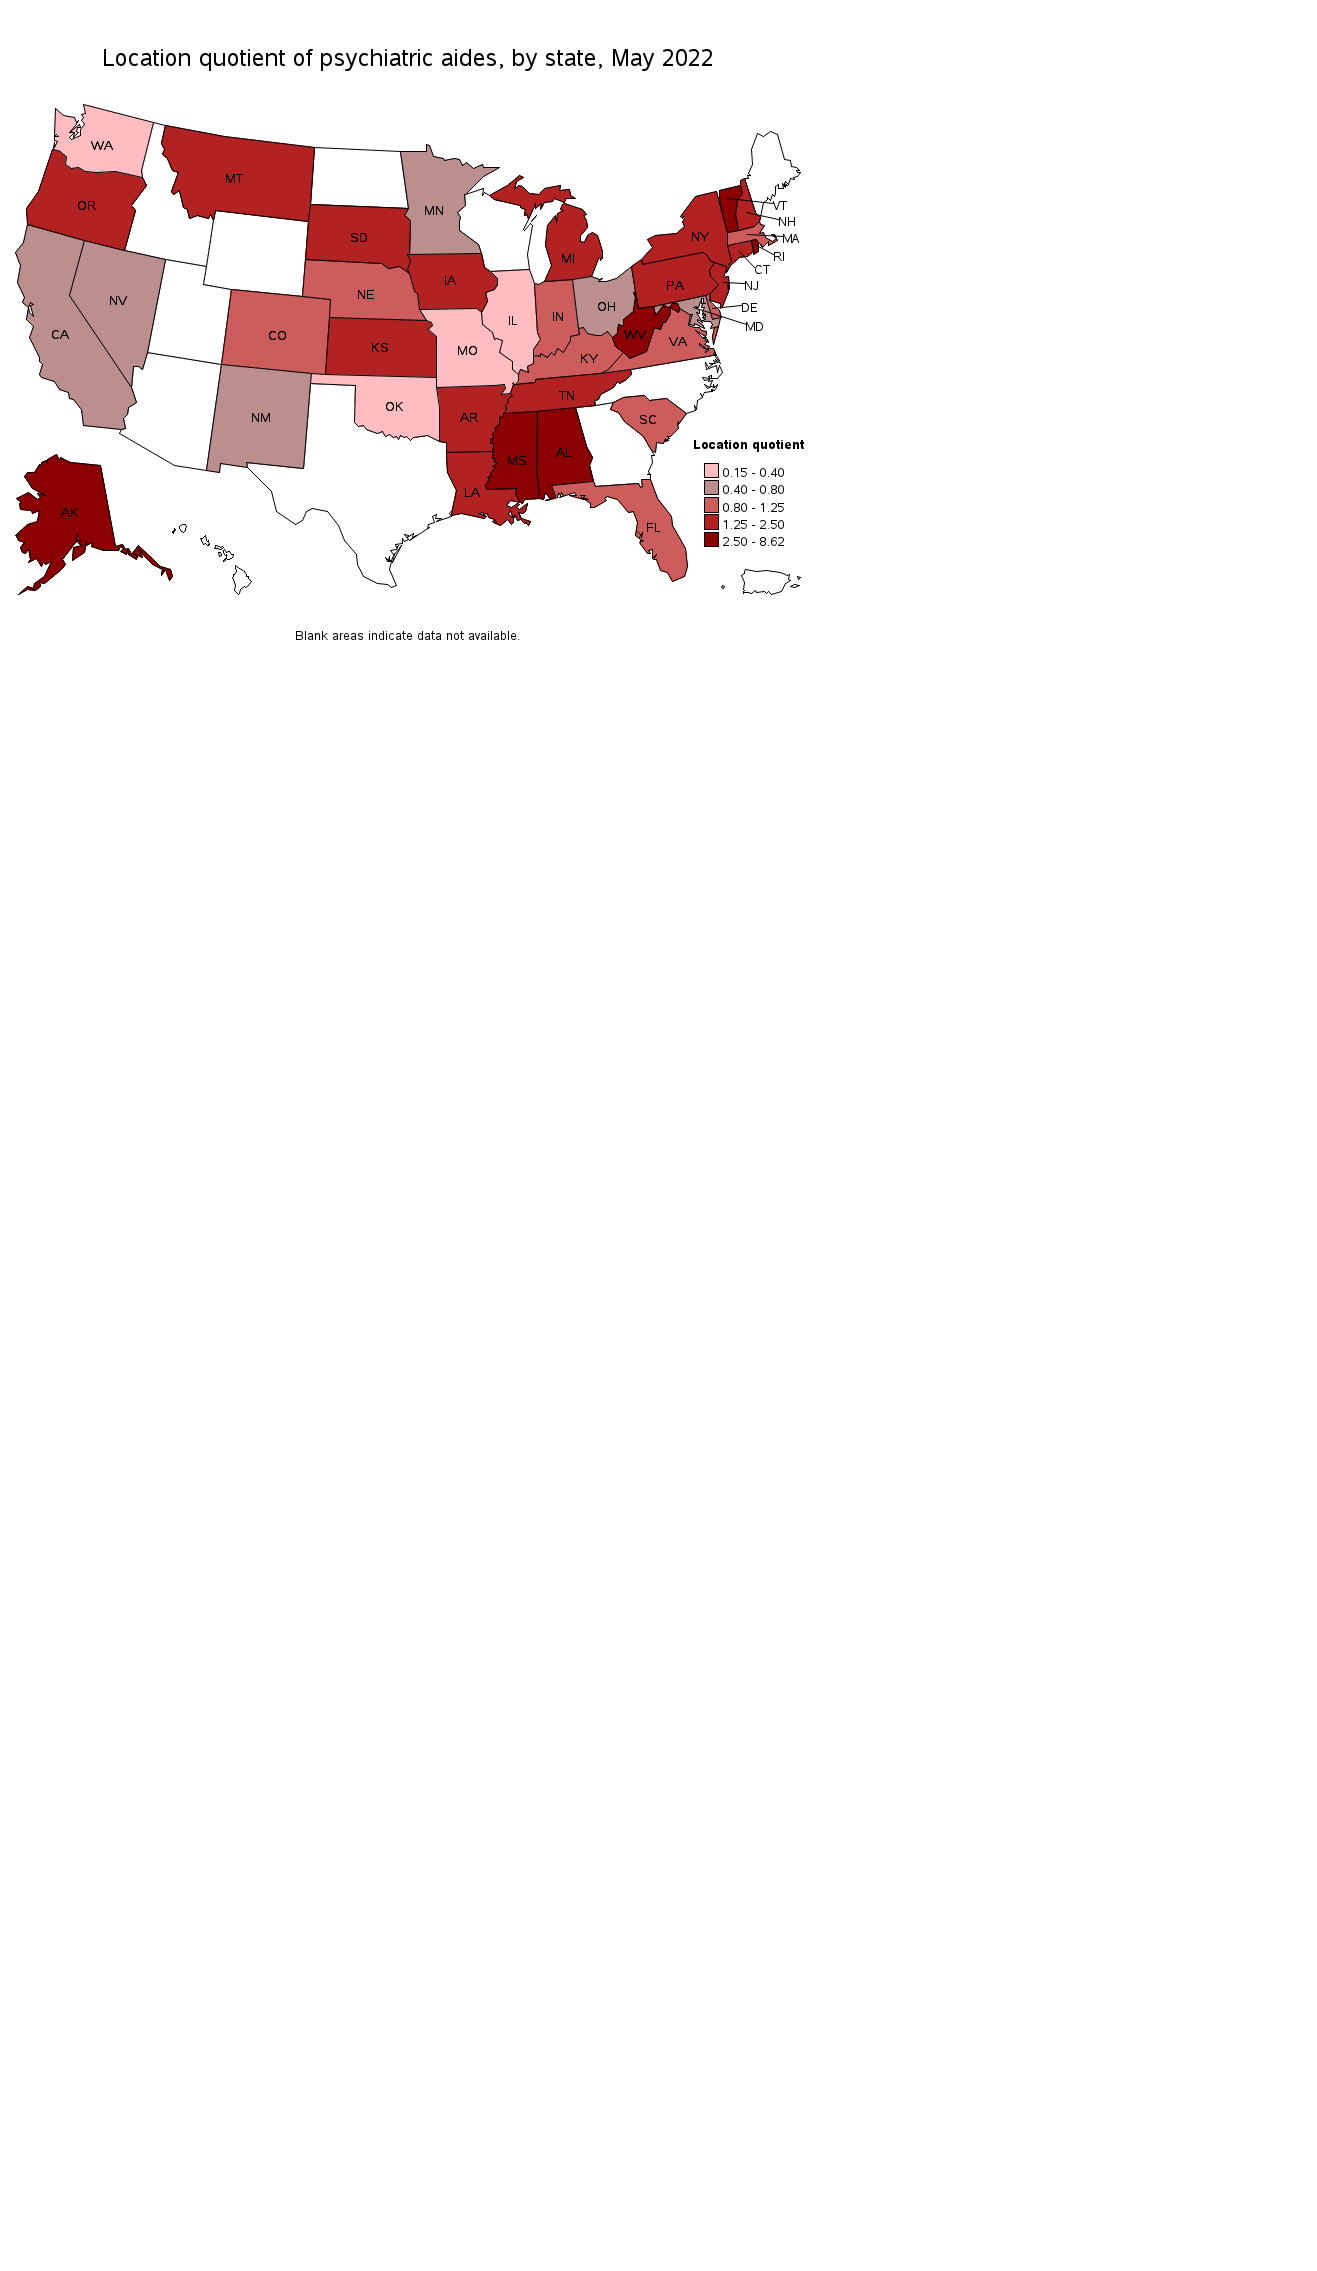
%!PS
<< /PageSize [1317 2271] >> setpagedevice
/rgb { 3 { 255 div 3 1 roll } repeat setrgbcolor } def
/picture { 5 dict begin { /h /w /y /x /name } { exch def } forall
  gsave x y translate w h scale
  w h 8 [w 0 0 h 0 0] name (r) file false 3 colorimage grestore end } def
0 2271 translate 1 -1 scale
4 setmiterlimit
255 255 255 rgb
0 0 1317 2271 rectfill
(img/1.rgb) 15 49 789 591 picture
showpage
